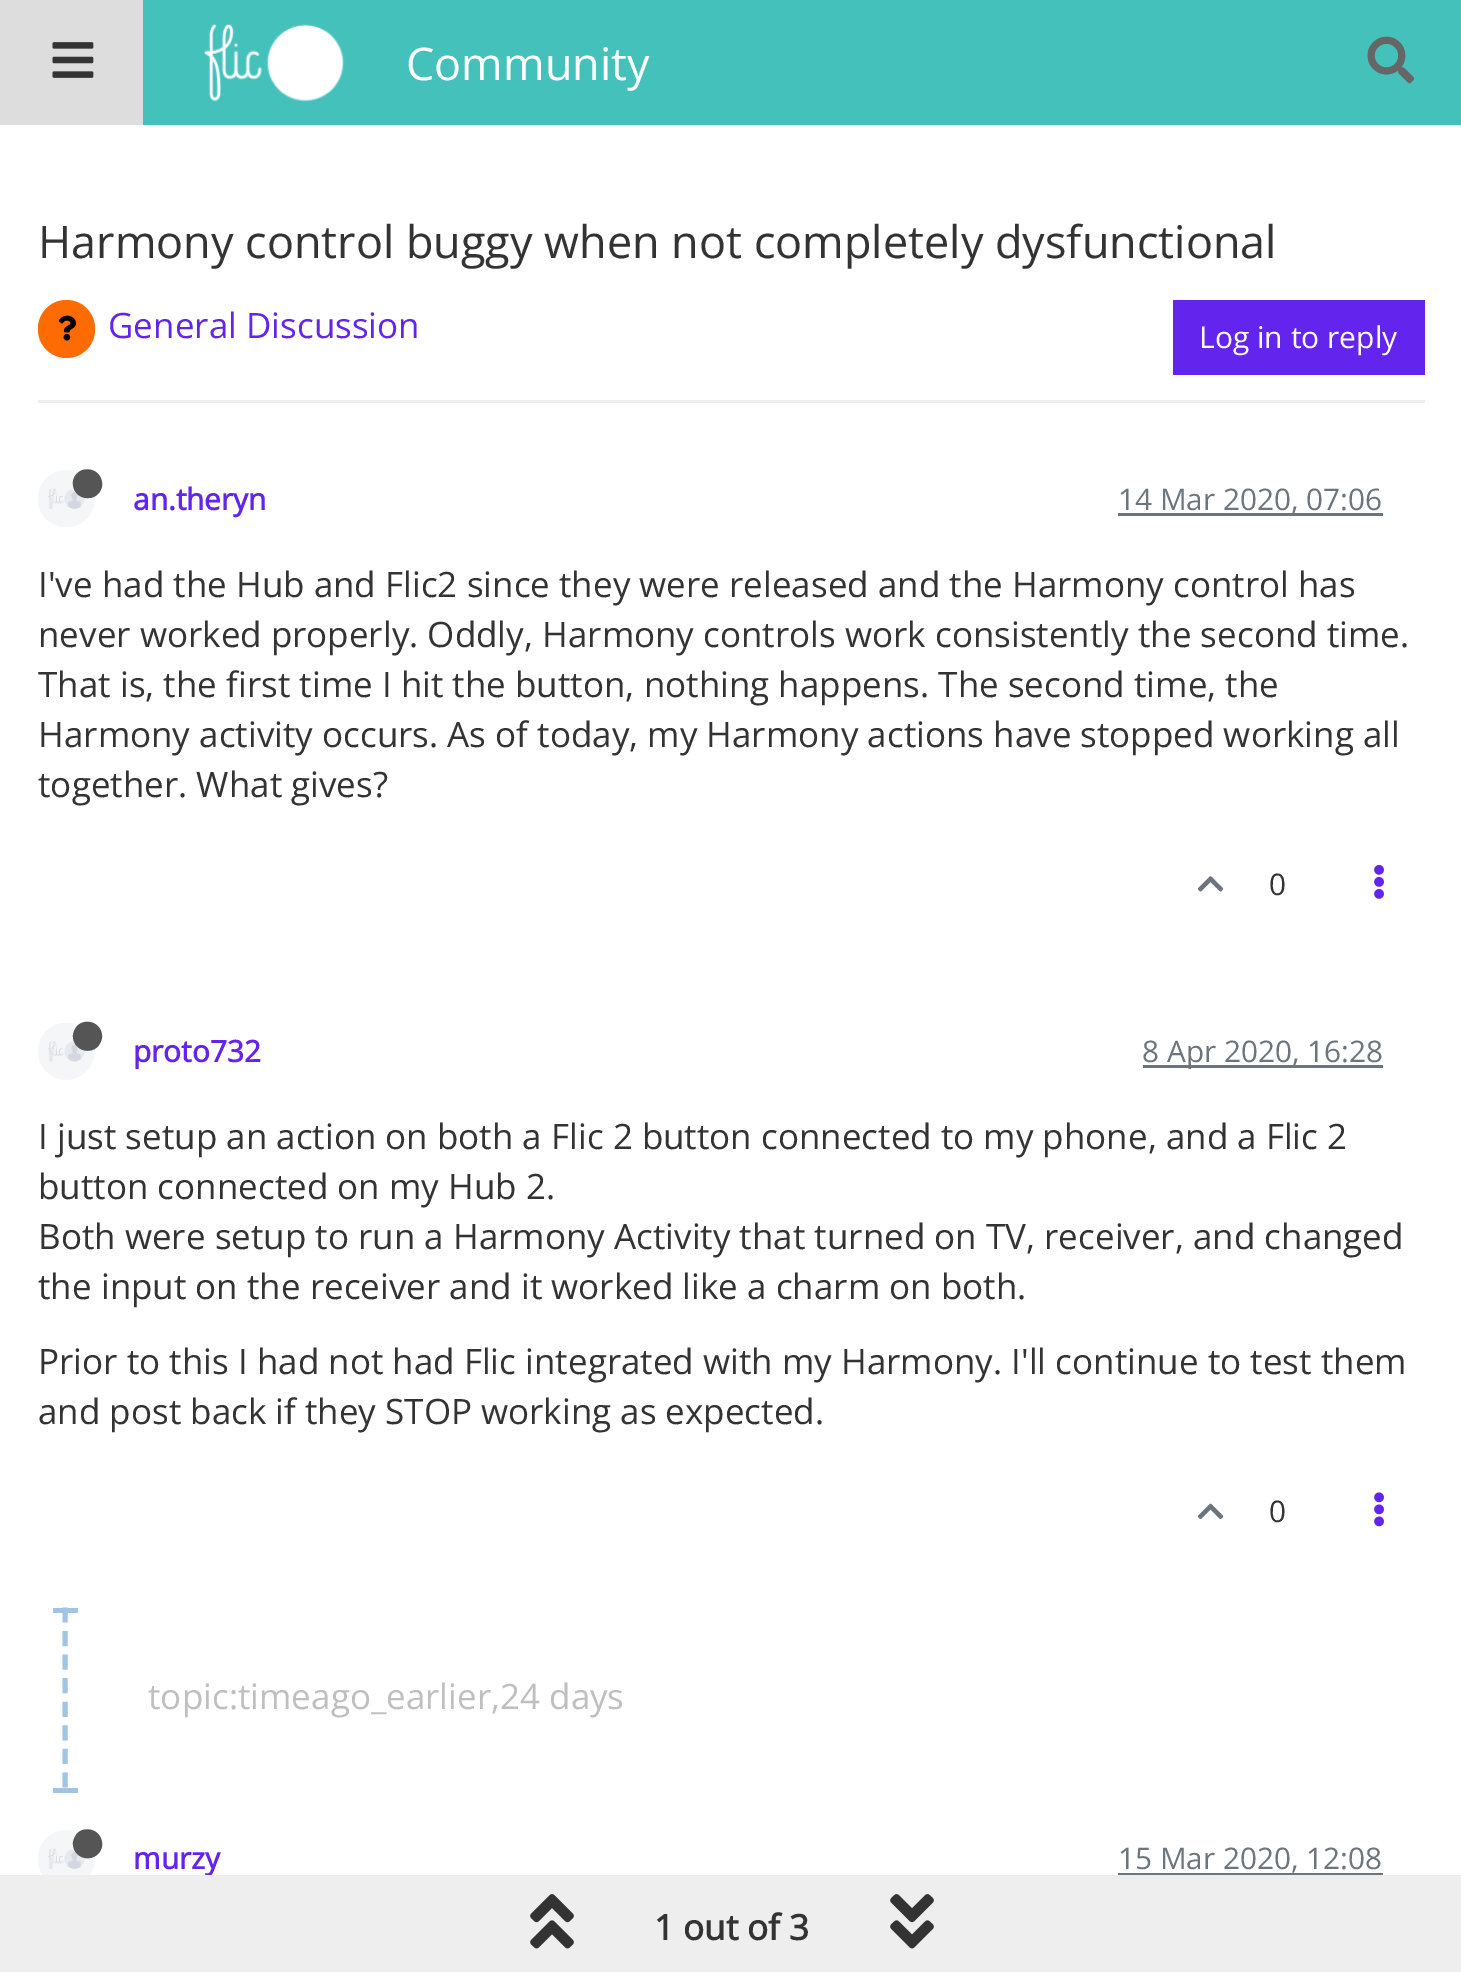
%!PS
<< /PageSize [1461 1972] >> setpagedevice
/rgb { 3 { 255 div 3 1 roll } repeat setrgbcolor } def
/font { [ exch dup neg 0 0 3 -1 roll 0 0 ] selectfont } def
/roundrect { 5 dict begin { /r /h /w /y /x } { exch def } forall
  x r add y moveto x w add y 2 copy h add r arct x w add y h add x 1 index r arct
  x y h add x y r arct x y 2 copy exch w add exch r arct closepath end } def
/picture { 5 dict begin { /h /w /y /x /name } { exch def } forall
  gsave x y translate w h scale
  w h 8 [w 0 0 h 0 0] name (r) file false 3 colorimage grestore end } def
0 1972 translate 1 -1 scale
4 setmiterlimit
255 255 255 rgb
0 0 1461 1972 rectfill
69 193 188 rgb
143 0 1318 125 rectfill
221 221 221 rgb
0 0 143 125 rectfill
(img/1.rgb) 52 42 42 36 picture
(img/2.rgb) 204 24 141 78 picture
(img/3.rgb) 1367 36 48 48 picture
238 238 238 rgb
38 400 1387 3 rectfill
255 107 3 rgb
38 300 57 58 28.5 roundrect fill
(img/4.rgb) 58 315 18 26 picture
99 36 238 rgb
1173 300 252 75 rectfill
(img/5.rgb) 38 470 57 57 picture
85 85 85 rgb
77 473.5 moveto 79.5 471 82.5 469.5 86 469.5 curveto 99.5 468 107.5 484.5 98 494 curveto 95.5 496.5 92.5 498 89 498 curveto 75.5 499.5 67.5 483 77 473.5 curveto closepath fill
108 117 125 rgb
1118 513 265 3 rectfill
(img/6.rgb) 1197 876 27 16 picture
(img/7.rgb) 1374 864 10 35 picture
(img/8.rgb) 38 1023 57 57 picture
85 85 85 rgb
77 1026 moveto 87 1016.5 103 1024 102 1037.5 curveto 101.5 1041 100 1044 98 1046.5 curveto 88 1056 72 1048.5 73 1035 curveto 73.5 1031.5 75 1028.5 77 1026 curveto closepath fill
108 117 125 rgb
1143 1065 240 3 rectfill
(img/9.rgb) 1197 1503 27 16 picture
(img/10.rgb) 1374 1492 10 35 picture
160 196 228 rgb
5 setlinewidth
[15 8.58] 0 setdash
65 1607.5 moveto 65 1787.5 lineto stroke
53 1608 25 5 rectfill
53 1788 25 5 rectfill
(img/11.rgb) 38 1830 57 45 picture
85 85 85 rgb
77 1833.5 moveto 79.5 1831 82.5 1829.5 86 1829.5 curveto 99.5 1828 107.5 1844.5 98 1854 curveto 88 1863.5 72 1856 73 1842.5 curveto 73.5 1839 75 1836 77 1833.5 curveto closepath fill
108 117 125 rgb
1118 1873 265 2 rectfill
/OpenSans-Regular 45 font
255 255 255 rgb
406 80 moveto (Community) show
51 51 51 rgb
38 258 moveto (Harmony control buggy when not completely dysfunctional) show
/OpenSans-Regular 35 font
99 36 238 rgb
108 338 moveto (General Discussion) show
/OpenSans-Regular 30 font
255 255 255 rgb
1199 348 moveto (Log in to reply) show
/OpenSans-Bold 29.75 font
99 36 238 rgb
133 510 moveto (an.theryn) show
/OpenSans-Regular 29.75 font
108 117 125 rgb
1118 510 moveto (14 Mar 2020, 07:06) show
/OpenSans-Regular 35 font
51 51 51 rgb
38 597 moveto (I've had the Hub and Flic2 since they were released and the Harmony control has) show
38 647 moveto (never worked properly. Oddly, Harmony controls work consistently the second time.) show
gsave
38 560 1387 278 rectclip
38 697 moveto (That is, the first time I hit the button, nothing happens. The second time, the) show
grestore
38 747 moveto (Harmony activity occurs. As of today, my Harmony actions have stopped working all) show
38 797 moveto (together. What gives?) show
/OpenSans-Regular 29.75 font
1269 895 moveto (0) show
/OpenSans-Bold 29.75 font
99 36 238 rgb
133 1062 moveto (proto732) show
/OpenSans-Regular 29.75 font
108 117 125 rgb
1142 1062 moveto (8 Apr 2020, 16:28) show
/OpenSans-Regular 35 font
51 51 51 rgb
[
  [(I just setup an action on both a Flic 2 button connected to my phone, and a Flic 2) 38 1149]
  [(button connected on my Hub 2.) 38 1199]
  [(Both were setup to run a Harmony Activity that turned on TV, receiver, and changed) 38 1249]
  [(the input on the receiver and it worked like a charm on both.) 38 1299]
  [(Prior to this I had not had Flic integrated with my Harmony. I'll continue to test them) 38 1374]
  [(and post back if they STOP working as expected.) 38 1424]
] { aload pop moveto show } forall
/OpenSans-Regular 29.75 font
1269 1522 moveto (0) show
/OpenSans-Regular 35 font
191 191 191 rgb
148 1709 moveto (topic:timeago_earlier,24 days) show
/OpenSans-Bold 29.75 font
99 36 238 rgb
133 1869 moveto (murzy) show
/OpenSans-Regular 29.75 font
108 117 125 rgb
1118 1869 moveto (15 Mar 2020, 12:08) show
238 238 238 rgb
0 1875 1461 97 rectfill
(img/12.rgb) 530 1894 44 55 picture
/OpenSans-Bold 35 font
51 51 51 rgb
654 1940 moveto (1 out of 3) show
(img/13.rgb) 890 1894 44 55 picture
showpage
